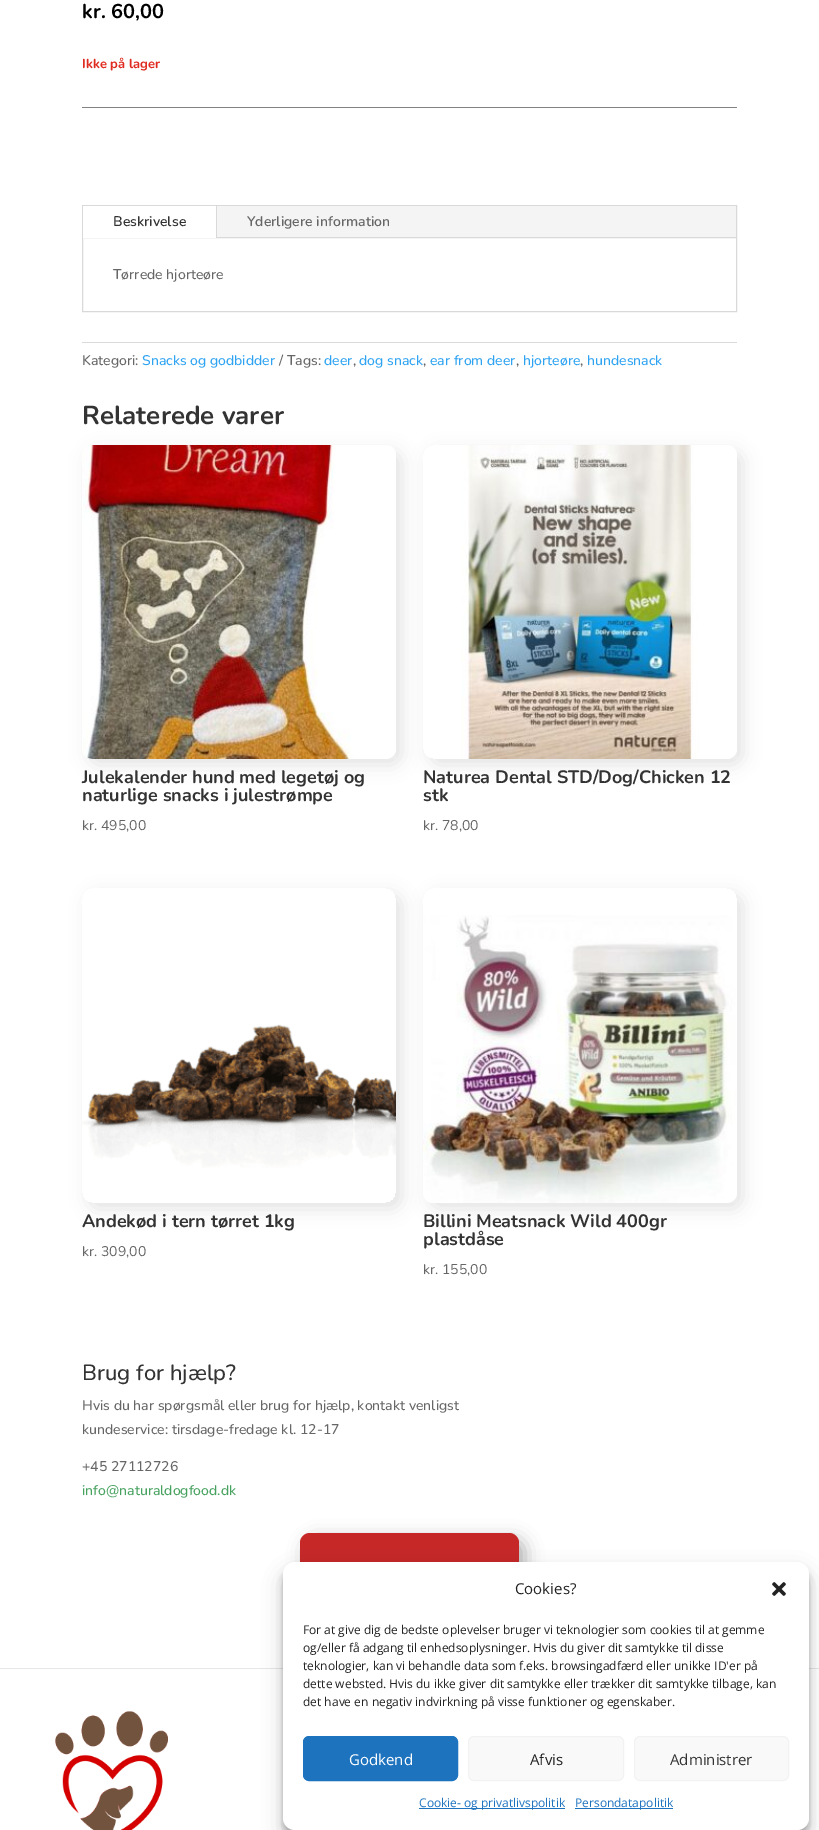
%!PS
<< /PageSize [819 1830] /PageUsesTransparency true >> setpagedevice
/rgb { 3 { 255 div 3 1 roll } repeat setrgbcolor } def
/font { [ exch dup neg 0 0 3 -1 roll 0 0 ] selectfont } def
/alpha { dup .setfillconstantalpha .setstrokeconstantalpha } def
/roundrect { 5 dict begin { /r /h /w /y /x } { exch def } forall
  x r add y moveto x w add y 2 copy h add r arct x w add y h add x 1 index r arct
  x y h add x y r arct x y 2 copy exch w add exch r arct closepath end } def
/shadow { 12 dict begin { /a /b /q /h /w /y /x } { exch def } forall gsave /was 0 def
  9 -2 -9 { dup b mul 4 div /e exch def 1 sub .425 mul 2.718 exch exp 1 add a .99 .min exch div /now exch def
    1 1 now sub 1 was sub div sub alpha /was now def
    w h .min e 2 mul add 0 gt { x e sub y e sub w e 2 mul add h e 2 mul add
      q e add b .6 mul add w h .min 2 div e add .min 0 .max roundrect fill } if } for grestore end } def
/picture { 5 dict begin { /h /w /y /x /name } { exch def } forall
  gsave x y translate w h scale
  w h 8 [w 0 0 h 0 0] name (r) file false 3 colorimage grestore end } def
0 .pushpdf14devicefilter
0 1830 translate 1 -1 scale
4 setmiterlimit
255 255 255 rgb
0 0 819 1830 rectfill
130 130 130 rgb
82 107 655 1 rectfill
217 217 217 rgb
82.5 205.5 654 106 rectstroke
[
  [83 206 653 33 244 244 244]
  [83 206 133 32 255 255 255]
  [216 206 1 32 217 217 217]
  [217 237 519 1 217 217 217]
  [82 342 655 1 218 218 218]
] { aload pop rgb rectfill } forall
0 0 0 rgb
88 451 314 314 10 9 0.11 shadow
(img/1.rgb) 82 445 314 314 picture
gsave
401 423 moveto 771 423 lineto 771 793 lineto 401 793 lineto closepath 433 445 moveto 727 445 lineto 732.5 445 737 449.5 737 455 curveto 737 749 lineto 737 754.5 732.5 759 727 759 curveto 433 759 lineto 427.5 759 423 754.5 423 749 curveto 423 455 lineto 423 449.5 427.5 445 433 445 curveto closepath eoclip newpath
429 451 314 314 10 9 0.11 shadow
grestore
(img/2.rgb) 461 445 276 314 picture
gsave
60 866 moveto 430 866 lineto 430 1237 lineto 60 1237 lineto closepath 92 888 moveto 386 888 lineto 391.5 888 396 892.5 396 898 curveto 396 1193 lineto 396 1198.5 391.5 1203 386 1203 curveto 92 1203 lineto 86.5 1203 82 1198.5 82 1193 curveto 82 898 lineto 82 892.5 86.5 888 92 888 curveto closepath eoclip newpath
88 894 314 315 10 9 0.11 shadow
grestore
(img/3.rgb) 82 1024 314 144 picture
gsave
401 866 moveto 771 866 lineto 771 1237 lineto 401 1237 lineto closepath 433 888 moveto 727 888 lineto 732.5 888 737 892.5 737 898 curveto 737 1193 lineto 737 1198.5 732.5 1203 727 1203 curveto 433 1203 lineto 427.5 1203 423 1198.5 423 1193 curveto 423 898 lineto 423 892.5 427.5 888 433 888 curveto closepath eoclip newpath
429 894 314 315 10 9 0.11 shadow
grestore
(img/4.rgb) 423 915 314 288 picture
306 1539 219 55 10 9 0.3 shadow
198 40 40 rgb
300 1533 219 55 10 roundrect fill
230 230 230 rgb
0 1668 819 1 rectfill
(img/5.rgb) 55 1711 113 119 picture
0 0 0 rgb
283 1568 526 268 12 3 0.23 shadow
283 1572 526 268 12 10 0.19 shadow
255 255 255 rgb
283 1562 526 268 12 roundrect fill
(img/6.rgb) 772 1582 14 14 picture
30 115 190 rgb
303.5 1736.5 154 44 5.5 roundrect gsave fill grestore
stroke
249 249 249 rgb
468.5 1736.5 155 44 5.5 roundrect gsave fill grestore
242 242 242 rgb
stroke
249 249 249 rgb
634.5 1736.5 154 44 5.5 roundrect gsave fill grestore
242 242 242 rgb
stroke
30 115 190 rgb
419 1808 146 1 rectfill
575 1808 98 1 rectfill
/Nunito-Bold 20 font
0 0 0 rgb
82 18 moveto (kr. 60,00) show
/Nunito-Bold 13 font
224 43 32 rgb
82 68 moveto (Ikke på lager) show
/Nunito-SemiBold 14 font
51 51 51 rgb
113 226 moveto (Beskrivelse) show
102 102 102 rgb
247 226 moveto (Yderligere information) show
/Nunito-Medium 14 font
113 279 moveto (Tørrede hjorteøre) show
82 365 moveto (Kategori:) show
46 163 242 rgb
142 365 moveto (Snacks og godbidder) show
102 102 102 rgb
279 365 moveto (/ Tags:) show
46 163 242 rgb
324 365 moveto (deer) show
102 102 102 rgb
353 365 moveto (,) show
46 163 242 rgb
359 365 moveto (dog snack) show
102 102 102 rgb
423 365 moveto (,) show
46 163 242 rgb
430 365 moveto (ear from deer) show
102 102 102 rgb
516 365 moveto (,) show
46 163 242 rgb
523 365 moveto (hjorteøre) show
102 102 102 rgb
580 365 moveto (,) show
46 163 242 rgb
587 365 moveto (hundesnack) show
/Nunito-Bold 26 font
51 51 51 rgb
82 424 moveto (Relaterede varer) show
/Nunito-Bold 18 font
82 783 moveto (Julekalender hund med legetøj og) show
82 801 moveto (naturlige snacks i julestrømpe) show
/Nunito-Regular 14 font
102 102 102 rgb
82 830 moveto (kr. 495,00) show
/Nunito-Bold 18 font
51 51 51 rgb
423 783 moveto (Naturea Dental STD/Dog/Chicken 12) show
423 801 moveto (stk) show
/Nunito-Regular 14 font
102 102 102 rgb
423 830 moveto (kr. 78,00) show
/Nunito-Bold 18 font
51 51 51 rgb
82 1227 moveto (Andekød i tern tørret 1kg) show
/Nunito-Regular 14 font
102 102 102 rgb
82 1256 moveto (kr. 309,00) show
/Nunito-Bold 18 font
51 51 51 rgb
423 1227 moveto (Billini Meatsnack Wild 400gr) show
423 1245 moveto (plastdåse) show
/Nunito-Regular 14 font
102 102 102 rgb
423 1274 moveto (kr. 155,00) show
/Nunito-Medium 22 font
51 51 51 rgb
82 1380 moveto (Brug for hjælp?) show
/Nunito-Medium 14 font
102 102 102 rgb
[
  [(Hvis du har spørgsmål eller brug for hjælp, kontakt venligst) 82 1410]
  [(kundeservice: tirsdage-fredage kl. 12-17) 82 1434]
  [(+45 27112726) 82 1471]
] { aload pop moveto show } forall
71 161 95 rgb
82 1495 moveto (info@naturaldogfood.dk) show
/OpenSans-Regular 15 font
34 34 34 rgb
515 1594 moveto (Cookies?) show
/OpenSans-Regular 12 font
[
  [(For at give dig de bedste oplevelser bruger vi teknologier som cookies til at gemme) 303 1634]
  [(og/eller få adgang til enhedsoplysninger. Hvis du giver dit samtykke til disse) 303 1652]
  [(teknologier, kan vi behandle data som f.eks. browsingadfærd eller unikke ID'er på) 303 1670]
  [(dette websted. Hvis du ikke giver dit samtykke eller trækker dit samtykke tilbage, kan) 303 1688]
  [(det have en negativ indvirkning på visse funktioner og egenskaber.) 303 1706]
] { aload pop moveto show } forall
/OpenSans-Regular 15 font
255 255 255 rgb
349 1765 moveto (Godkend) show
34 34 34 rgb
530 1765 moveto (Afvis) show
51 51 51 rgb
670 1765 moveto (Administrer) show
/OpenSans-Regular 12 font
30 115 190 rgb
419 1807 moveto (Cookie- og privatlivspolitik) show
575 1807 moveto (Persondatapolitik) show
.poppdf14devicefilter showpage
